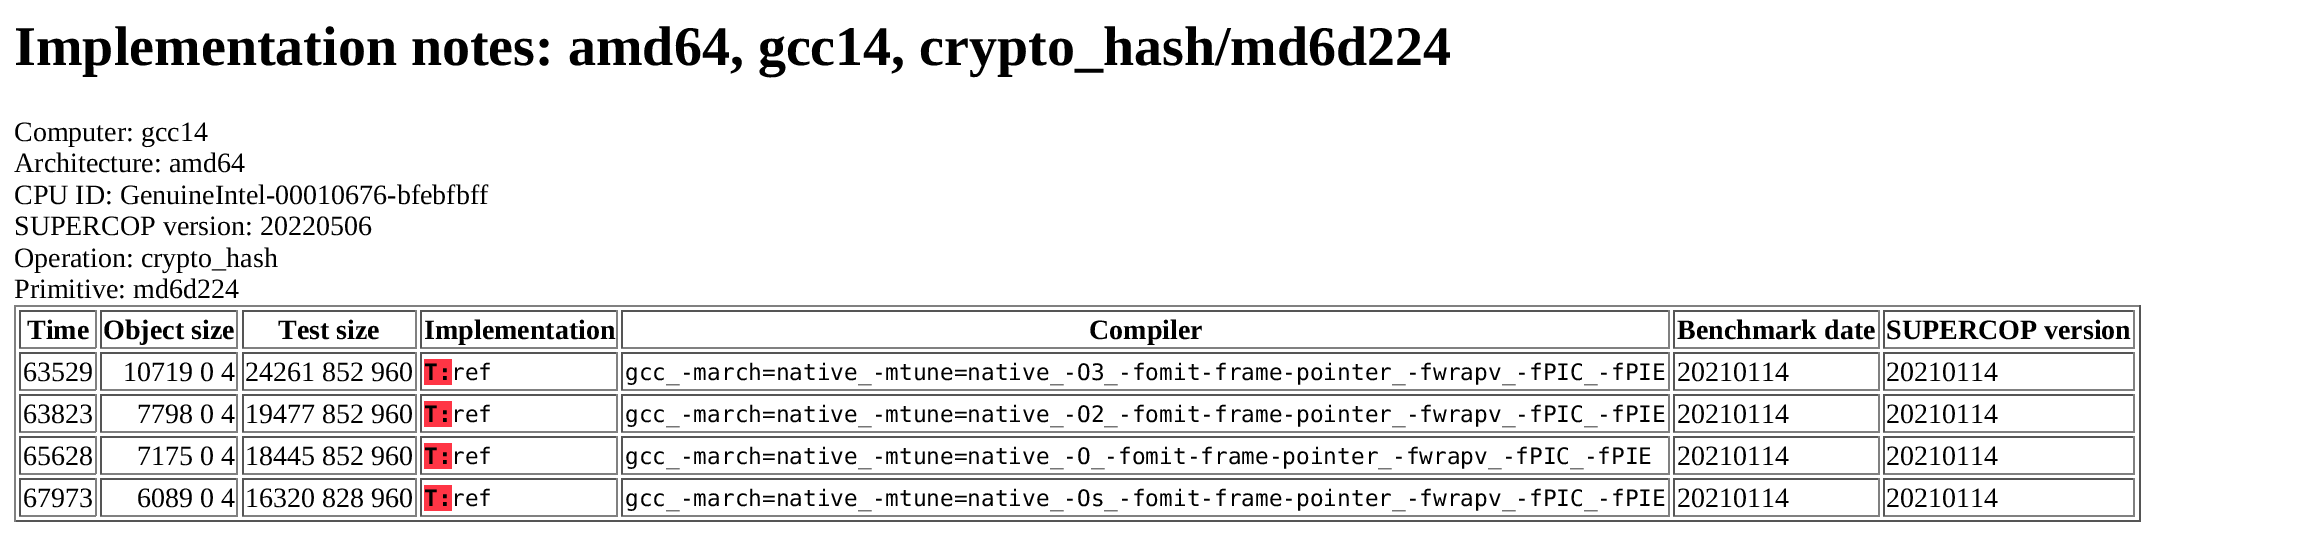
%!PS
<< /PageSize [2307 539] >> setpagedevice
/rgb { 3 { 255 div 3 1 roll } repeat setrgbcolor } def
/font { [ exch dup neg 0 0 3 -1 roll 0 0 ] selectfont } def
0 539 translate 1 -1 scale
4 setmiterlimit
255 255 255 rgb
0 0 2307 539 rectfill
[
  [14 305 2126 2 128 128 128]
  [2139 305 2 217 85 85 85]
  [14 520 2126 2 85 85 85]
  [14 305 2 217 128 128 128]
  [19 310 77 2 85 85 85]
  [95 310 2 38 128 128 128]
  [19 347 77 2 128 128 128]
  [19 310 2 38 85 85 85]
  [100 310 138 2 85 85 85]
  [236 310 2 38 128 128 128]
  [100 347 138 2 128 128 128]
  [100 310 2 38 85 85 85]
  [242 310 175 2 85 85 85]
  [415 310 2 38 128 128 128]
  [242 347 175 2 128 128 128]
  [242 310 2 38 85 85 85]
  [420 310 198 2 85 85 85]
  [616 310 2 38 128 128 128]
  [420 347 198 2 128 128 128]
  [420 310 2 38 85 85 85]
  [621 310 1049 2 85 85 85]
  [1668 310 2 38 128 128 128]
  [621 347 1049 2 128 128 128]
  [621 310 2 38 85 85 85]
  [1673 310 207 2 85 85 85]
  [1878 310 2 38 128 128 128]
  [1673 347 207 2 128 128 128]
  [1673 310 2 38 85 85 85]
  [1883 310 252 2 85 85 85]
  [2133 310 2 38 128 128 128]
  [1883 347 252 2 128 128 128]
  [1883 310 2 38 85 85 85]
  [19 352 77 2 85 85 85]
  [95 352 2 38 128 128 128]
  [19 389 77 2 128 128 128]
  [19 352 2 38 85 85 85]
  [100 352 138 2 85 85 85]
  [236 352 2 38 128 128 128]
  [100 389 138 2 128 128 128]
  [100 352 2 38 85 85 85]
  [242 352 175 2 85 85 85]
  [415 352 2 38 128 128 128]
  [242 389 175 2 128 128 128]
  [242 352 2 38 85 85 85]
  [420 352 198 2 85 85 85]
  [616 352 2 38 128 128 128]
  [420 389 198 2 128 128 128]
  [420 352 2 38 85 85 85]
  [424 359 28 26 255 53 69]
  [621 352 1049 2 85 85 85]
  [1668 352 2 38 128 128 128]
  [621 389 1049 2 128 128 128]
  [621 352 2 38 85 85 85]
  [1673 352 207 2 85 85 85]
  [1878 352 2 38 128 128 128]
  [1673 389 207 2 128 128 128]
  [1673 352 2 38 85 85 85]
  [1883 352 252 2 85 85 85]
  [2133 352 2 38 128 128 128]
  [1883 389 252 2 128 128 128]
  [1883 352 2 38 85 85 85]
  [19 394 77 2 85 85 85]
  [95 394 2 38 128 128 128]
  [19 431 77 2 128 128 128]
  [19 394 2 38 85 85 85]
  [100 394 138 2 85 85 85]
  [236 394 2 38 128 128 128]
  [100 431 138 2 128 128 128]
  [100 394 2 38 85 85 85]
  [242 394 175 2 85 85 85]
  [415 394 2 38 128 128 128]
  [242 431 175 2 128 128 128]
  [242 394 2 38 85 85 85]
  [420 394 198 2 85 85 85]
  [616 394 2 38 128 128 128]
  [420 431 198 2 128 128 128]
  [420 394 2 38 85 85 85]
  [424 401 28 26 255 53 69]
  [621 394 1049 2 85 85 85]
  [1668 394 2 38 128 128 128]
  [621 431 1049 2 128 128 128]
  [621 394 2 38 85 85 85]
  [1673 394 207 2 85 85 85]
  [1878 394 2 38 128 128 128]
  [1673 431 207 2 128 128 128]
  [1673 394 2 38 85 85 85]
  [1883 394 252 2 85 85 85]
  [2133 394 2 38 128 128 128]
  [1883 431 252 2 128 128 128]
  [1883 394 2 38 85 85 85]
  [19 436 77 2 85 85 85]
  [95 436 2 38 128 128 128]
  [19 473 77 2 128 128 128]
  [19 436 2 38 85 85 85]
  [100 436 138 2 85 85 85]
  [236 436 2 38 128 128 128]
  [100 473 138 2 128 128 128]
  [100 436 2 38 85 85 85]
  [242 436 175 2 85 85 85]
  [415 436 2 38 128 128 128]
  [242 473 175 2 128 128 128]
  [242 436 2 38 85 85 85]
  [420 436 198 2 85 85 85]
  [616 436 2 38 128 128 128]
  [420 473 198 2 128 128 128]
  [420 436 2 38 85 85 85]
  [424 443 28 26 255 53 69]
  [621 436 1049 2 85 85 85]
  [1668 436 2 38 128 128 128]
  [621 473 1049 2 128 128 128]
  [621 436 2 38 85 85 85]
  [1673 436 207 2 85 85 85]
  [1878 436 2 38 128 128 128]
  [1673 473 207 2 128 128 128]
  [1673 436 2 38 85 85 85]
  [1883 436 252 2 85 85 85]
  [2133 436 2 38 128 128 128]
  [1883 473 252 2 128 128 128]
  [1883 436 2 38 85 85 85]
  [19 478 77 2 85 85 85]
  [95 478 2 38 128 128 128]
  [19 515 77 2 128 128 128]
  [19 478 2 38 85 85 85]
  [100 478 138 2 85 85 85]
  [236 478 2 38 128 128 128]
  [100 515 138 2 128 128 128]
  [100 478 2 38 85 85 85]
  [242 478 175 2 85 85 85]
  [415 478 2 38 128 128 128]
  [242 515 175 2 128 128 128]
  [242 478 2 38 85 85 85]
  [420 478 198 2 85 85 85]
  [616 478 2 38 128 128 128]
  [420 515 198 2 128 128 128]
  [420 478 2 38 85 85 85]
  [424 485 28 26 255 53 69]
  [621 478 1049 2 85 85 85]
  [1668 478 2 38 128 128 128]
  [621 515 1049 2 128 128 128]
  [621 478 2 38 85 85 85]
  [1673 478 207 2 85 85 85]
  [1878 478 2 38 128 128 128]
  [1673 515 207 2 128 128 128]
  [1673 478 2 38 85 85 85]
  [1883 478 252 2 85 85 85]
  [2133 478 2 38 128 128 128]
  [1883 515 252 2 128 128 128]
  [1883 478 2 38 85 85 85]
] { aload pop rgb rectfill } forall
/LiberationSerif-Bold 56 font
0 0 0 rgb
14 65 moveto (Implementation notes: amd64, gcc14, crypto_hash/md6d224) show
/LiberationSerif-Regular 28 font
[
  [(Computer: gcc14) 14 141]
  [(Architecture: amd64) 14 172]
  [(CPU ID: GenuineIntel-00010676-bfebfbff) 14 204]
  [(SUPERCOP version: 20220506) 14 235]
  [(Operation: crypto_hash) 14 267]
  [(Primitive: md6d224) 14 298]
] { aload pop moveto show } forall
/LiberationSerif-Bold 28 font
[
  [(Time) 27 339]
  [(Object size) 103 339]
  [(Test size) 278 339]
  [(Implementation) 424 339]
  [(Compiler) 1089 339]
  [(Benchmark date) 1677 339]
  [(SUPERCOP version) 1886 339]
] { aload pop moveto show } forall
/LiberationSerif-Regular 28 font
[
  [(63529) 23 381]
  [(10719 0 4) 123 381]
  [(24261 852 960) 245 381]
] { aload pop moveto show } forall
/DejaVuSansMono-Bold 22.75 font
424 380 moveto (T:) show
/DejaVuSansMono-Regular 22.75 font
451 380 moveto (ref) show
625 380 moveto (gcc_-march=native_-mtune=native_-O3_-fomit-frame-pointer_-fwrapv_-fPIC_-fPIE) show
/LiberationSerif-Regular 28 font
[
  [(20210114) 1677 381]
  [(20210114) 1886 381]
  [(63823) 23 423]
  [(7798 0 4) 137 423]
  [(19477 852 960) 245 423]
] { aload pop moveto show } forall
/DejaVuSansMono-Bold 22.75 font
424 422 moveto (T:) show
/DejaVuSansMono-Regular 22.75 font
451 422 moveto (ref) show
625 422 moveto (gcc_-march=native_-mtune=native_-O2_-fomit-frame-pointer_-fwrapv_-fPIC_-fPIE) show
/LiberationSerif-Regular 28 font
[
  [(20210114) 1677 423]
  [(20210114) 1886 423]
  [(65628) 23 465]
  [(7175 0 4) 137 465]
  [(18445 852 960) 245 465]
] { aload pop moveto show } forall
/DejaVuSansMono-Bold 22.75 font
424 464 moveto (T:) show
/DejaVuSansMono-Regular 22.75 font
451 464 moveto (ref) show
625 464 moveto (gcc_-march=native_-mtune=native_-O_-fomit-frame-pointer_-fwrapv_-fPIC_-fPIE) show
/LiberationSerif-Regular 28 font
[
  [(20210114) 1677 465]
  [(20210114) 1886 465]
  [(67973) 23 507]
  [(6089 0 4) 137 507]
  [(16320 828 960) 245 507]
] { aload pop moveto show } forall
/DejaVuSansMono-Bold 22.75 font
424 506 moveto (T:) show
/DejaVuSansMono-Regular 22.75 font
451 506 moveto (ref) show
625 506 moveto (gcc_-march=native_-mtune=native_-Os_-fomit-frame-pointer_-fwrapv_-fPIC_-fPIE) show
/LiberationSerif-Regular 28 font
1677 507 moveto (20210114) show
1886 507 moveto (20210114) show
showpage
